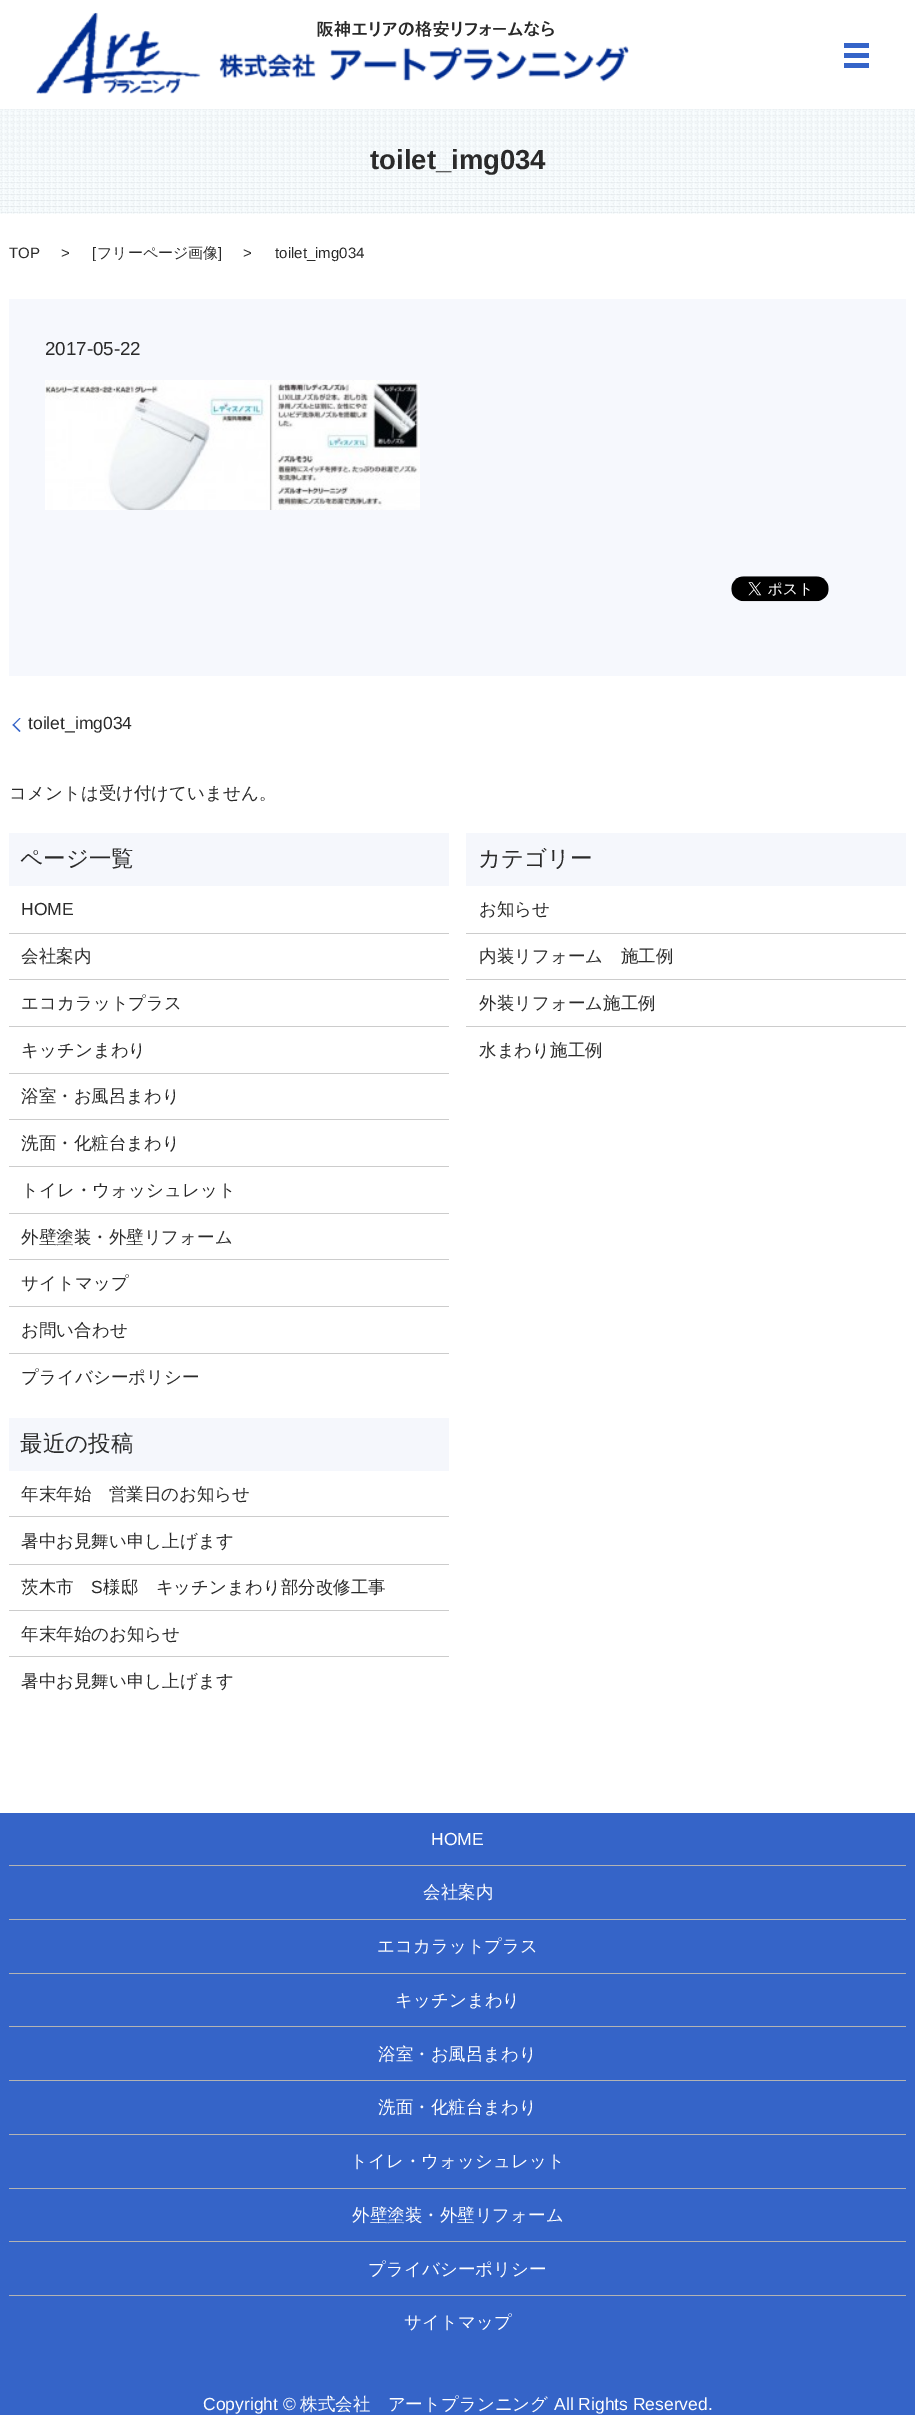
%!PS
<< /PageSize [915 2415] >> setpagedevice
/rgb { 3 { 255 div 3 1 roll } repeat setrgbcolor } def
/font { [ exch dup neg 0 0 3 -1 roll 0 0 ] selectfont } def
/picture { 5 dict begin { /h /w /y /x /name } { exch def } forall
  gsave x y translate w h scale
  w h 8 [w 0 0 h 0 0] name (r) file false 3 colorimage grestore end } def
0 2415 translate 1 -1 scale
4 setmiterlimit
255 255 255 rgb
0 0 915 2415 rectfill
(img/1.rgb) 36 12 593 82 picture
[
  [844 43 25 5 53 100 200]
  [844 53 25 5 53 100 200]
  [844 63 25 5 53 100 200]
] { aload pop rgb rectfill } forall
(img/2.rgb) 0 109 915 105 picture
246 248 253 rgb
9 299 897 377 rectfill
(img/3.rgb) 45 380 375 130 picture
(img/4.rgb) 731 576 98 26 picture
53 100 200 rgb
12.5 725 moveto 19.5 718 lineto 20.5 718.5 lineto 13.5 725.5 lineto closepath fill
19.5 732 moveto 12.5 725 lineto 13.5 724 lineto 20.5 731 lineto closepath fill
[
  [9 833 440 53 245 247 252]
  [9 933 440 1 204 204 204]
  [9 979 440 1 204 204 204]
  [9 1026 440 1 204 204 204]
  [9 1073 440 1 204 204 204]
  [9 1119 440 1 204 204 204]
  [9 1166 440 1 204 204 204]
  [9 1213 440 1 204 204 204]
  [9 1259 440 1 204 204 204]
  [9 1306 440 1 204 204 204]
  [9 1353 440 1 204 204 204]
  [466 833 440 53 245 247 252]
  [466 933 440 1 204 204 204]
  [466 979 440 1 204 204 204]
  [466 1026 440 1 204 204 204]
  [9 1418 440 53 245 247 252]
  [9 1516 440 1 204 204 204]
  [9 1564 440 1 204 204 204]
  [9 1610 440 1 204 204 204]
  [9 1656 440 1 204 204 204]
  [0 1813 915 602 53 100 200]
  [9 1865 897 1 179 179 179]
  [9 1919 897 1 179 179 179]
  [9 1973 897 1 179 179 179]
  [9 2026 897 1 179 179 179]
  [9 2080 897 1 179 179 179]
  [9 2134 897 1 179 179 179]
  [9 2188 897 1 179 179 179]
  [9 2241 897 1 179 179 179]
  [9 2295 897 1 179 179 179]
] { aload pop rgb rectfill } forall
/LiberationSans-Bold 27.5 font
42 42 42 rgb
370 169 moveto (toilet_img034) show
/LiberationSans-Regular 15 font
[
  [(TOP) 9 258]
  [(>) 61 258]
  [([) 92 258]
] { aload pop moveto show } forall
/WenQuanYiZenHei-Medium 15 font
97 258 moveto (フリーページ画像) show
/LiberationSans-Regular 15 font
[
  [(]) 218 258]
  [(>) 243 258]
  [(toilet_img034) 275 258]
] { aload pop moveto show } forall
/LiberationSans-Regular 18.75 font
45 355 moveto (2017-05-22) show
/LiberationSans-Regular 17.5 font
28 729 moveto (toilet_img034) show
/WenQuanYiZenHei-Medium 17.5 font
9 799 moveto (コメントは受け付けていません。) show
/WenQuanYiZenHei-Medium 22.5 font
20 866 moveto (ページ一覧) show
/LiberationSans-Regular 17.5 font
21 915 moveto (HOME) show
/WenQuanYiZenHei-Medium 17.5 font
[
  [(会社案内) 21 962]
  [(エコカラットプラス) 21 1009]
  [(キッチンまわり) 21 1056]
  [(浴室・お風呂まわり) 21 1102]
  [(洗面・化粧台まわり) 21 1149]
  [(トイレ・ウォッシュレット) 21 1196]
  [(外壁塗装・外壁リフォーム) 21 1243]
  [(サイトマップ) 21 1289]
  [(お問い合わせ) 21 1336]
  [(プライバシーポリシー) 21 1383]
] { aload pop moveto show } forall
/WenQuanYiZenHei-Medium 22.5 font
478 866 moveto (カテゴリー) show
/WenQuanYiZenHei-Medium 17.5 font
[
  [(お知らせ) 479 915]
  [(内装リフォーム　施工例) 479 962]
  [(外装リフォーム施工例) 479 1009]
  [(水まわり施工例) 479 1056]
] { aload pop moveto show } forall
/WenQuanYiZenHei-Medium 22.5 font
20 1451 moveto (最近の投稿) show
/WenQuanYiZenHei-Medium 17.5 font
[
  [(年末年始　営業日のお知らせ) 21 1500]
  [(暑中お見舞い申し上げます) 21 1547]
  [(茨木市) 21 1593]
] { aload pop moveto show } forall
/LiberationSans-Regular 17.5 font
91 1593 moveto (S) show
/WenQuanYiZenHei-Medium 17.5 font
[
  [(様邸　キッチンまわり部分改修工事) 103 1593]
  [(年末年始のお知らせ) 21 1640]
  [(暑中お見舞い申し上げます) 21 1687]
] { aload pop moveto show } forall
/LiberationSans-Regular 17.5 font
255 255 255 rgb
431 1845 moveto (HOME) show
/WenQuanYiZenHei-Medium 17.5 font
[
  [(会社案内) 423 1898]
  [(エコカラットプラス) 377 1952]
  [(キッチンまわり) 395 2006]
  [(浴室・お風呂まわり) 378 2060]
  [(洗面・化粧台まわり) 378 2113]
  [(トイレ・ウォッシュレット) 350 2167]
  [(外壁塗装・外壁リフォーム) 352 2221]
  [(プライバシーポリシー) 368 2275]
  [(サイトマップ) 404 2328]
] { aload pop moveto show } forall
/LiberationSans-Regular 17.5 font
203 2410 moveto (Copyright ©) show
/WenQuanYiZenHei-Medium 17.5 font
300 2410 moveto (株式会社　アートプランニング) show
/LiberationSans-Regular 17.5 font
554 2410 moveto (All Rights Reserved.) show
showpage
